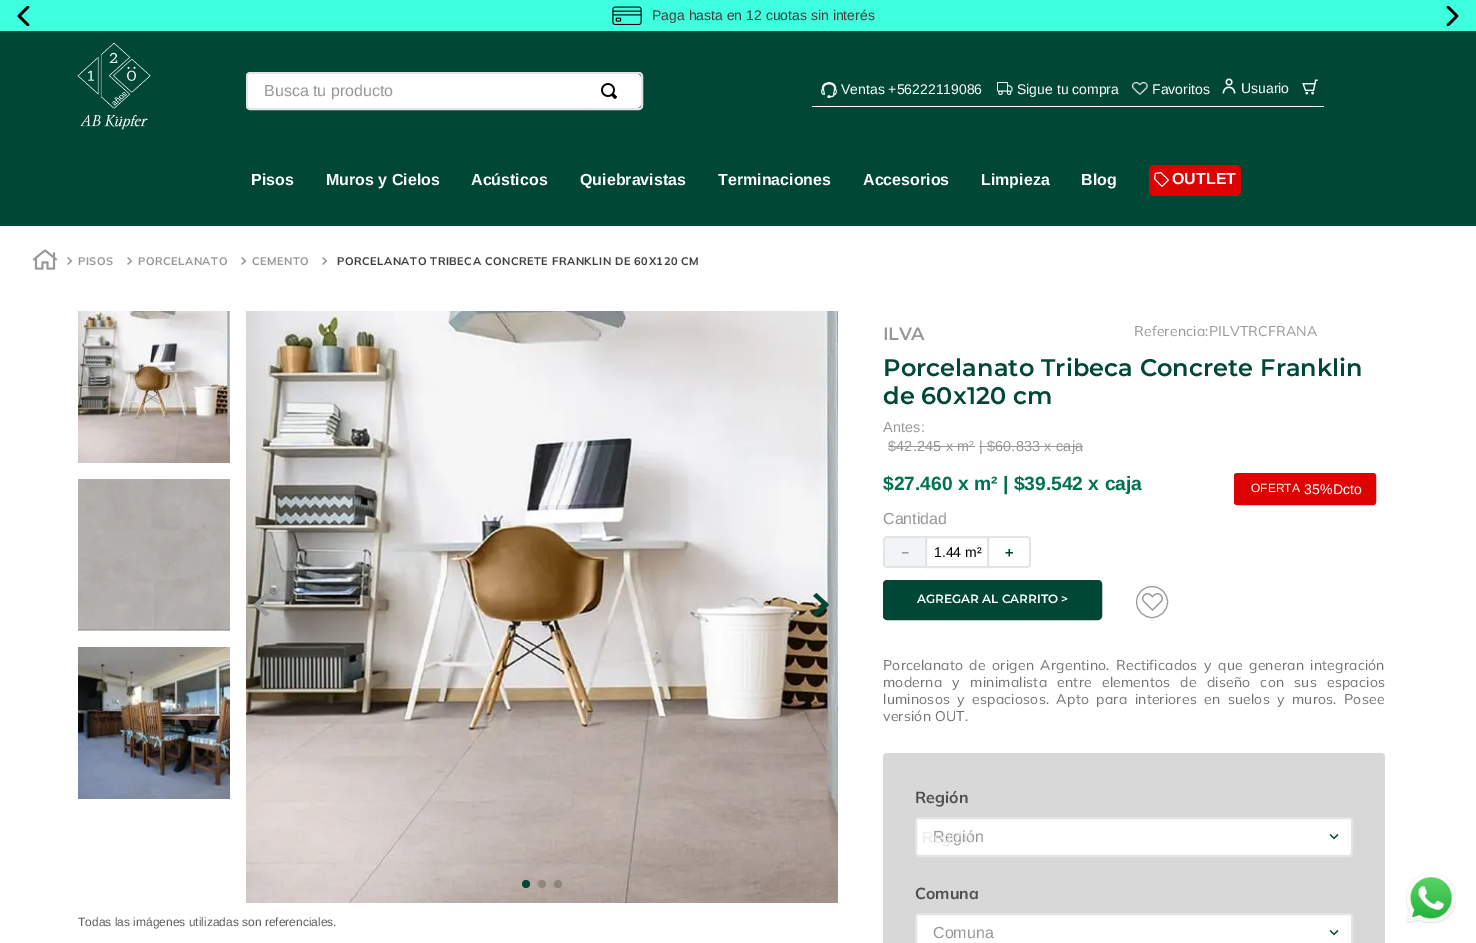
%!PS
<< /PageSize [1476 943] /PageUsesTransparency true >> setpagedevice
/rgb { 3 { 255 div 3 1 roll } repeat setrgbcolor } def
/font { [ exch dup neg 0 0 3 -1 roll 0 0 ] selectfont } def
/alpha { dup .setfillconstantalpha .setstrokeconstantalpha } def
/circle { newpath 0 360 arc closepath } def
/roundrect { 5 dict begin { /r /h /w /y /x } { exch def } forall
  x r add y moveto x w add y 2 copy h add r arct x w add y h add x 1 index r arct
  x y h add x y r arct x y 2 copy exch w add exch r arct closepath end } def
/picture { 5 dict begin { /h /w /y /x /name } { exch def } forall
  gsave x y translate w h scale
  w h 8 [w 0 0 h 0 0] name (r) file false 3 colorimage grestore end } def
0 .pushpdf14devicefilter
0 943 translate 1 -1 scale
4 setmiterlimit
255 255 255 rgb
0 0 1476 943 rectfill
62 255 222 rgb
0 0 1476 31 rectfill
gsave
14 6 20 20 rectclip
0 0 0 rgb
2.5 setlinewidth
1 setlinecap
1 setlinejoin
28 7 moveto 19 16 lineto 28 25 lineto stroke
grestore
(img/1.rgb) 612 6 30 19 picture
gsave
1442 6 20 20 rectclip
0 0 0 rgb
2.5 setlinewidth
1 setlinecap
1 setlinejoin
1448 25 moveto 1457 16 lineto 1448 7 lineto stroke
grestore
0 71 53 rgb
0 31 1476 195 rectfill
(img/2.rgb) 77 42 74 88 picture
227 228 230 rgb
2 setlinewidth
247 73 395 36 3 roundrect stroke
255 255 255 rgb
250 74 moveto 588 74 lineto 588.5 74 589 74.5 589 75 curveto 589 107 lineto 589 107.5 588.5 108 588 108 curveto 250 108 lineto 249 108 248 107 248 106 curveto 248 76 lineto 248 75 249 74 250 74 curveto closepath fill
589 74 moveto 637 74 lineto 639 74 641 76 641 78 curveto 641 104 lineto 641 106 639 108 637 108 curveto 589 108 lineto closepath fill
(img/3.rgb) 601 83 16 16 picture
812 106 512 1 rectfill
(img/4.rgb) 821 82 16 16 picture
(img/5.rgb) 997 82 16 13 picture
(img/6.rgb) 1132 82 16 13 picture
(img/7.rgb) 1222 78 14 16 picture
(img/8.rgb) 1302 79 16 16 picture
221 3 3 rgb
1149 165 92 31 5 roundrect fill
(img/9.rgb) 1154 172 15 15 picture
(img/10.rgb) 1406 873 50 50 picture
(img/11.rgb) 32 249 26 21 picture
(img/12.rgb) 67 257 6 8 picture
(img/12.rgb) 127 257 6 8 picture
(img/12.rgb) 241 257 6 8 picture
(img/12.rgb) 322 257 6 8 picture
(img/13.rgb) 78 311 152 152 picture
(img/14.rgb) 78 479 152 152 picture
(img/15.rgb) 78 647 152 152 picture
(img/16.rgb) 246 311 592 592 picture
(img/17.rgb) 253 593 17 24 picture
(img/18.rgb) 813 593 16 24 picture
0 71 53 rgb
526 884 4 circle fill
0.2 alpha
0 0 0 rgb
542 884 4 circle fill
558 884 4 circle fill
1 alpha
221 3 3 rgb
1236 475 138 28 1 roundrect gsave fill grestore
4 setlinewidth
stroke
242 244 245 rgb
887 538 moveto 925 538 lineto 925 566 lineto 887 566 lineto 886 566 885 565 885 564 curveto 885 540 lineto 885 539 886 538 887 538 curveto closepath fill
227 228 230 rgb
887 536 moveto 925 536 lineto 925 568 lineto 887 568 lineto 885 568 883 566 883 564 curveto 883 540 lineto 883 538 885 536 887 536 curveto closepath 887 538 moveto 925 538 lineto 925 566 lineto 886 566 lineto 884 564 885 551 885 548 curveto 885 546 883 538 887 538 curveto closepath eofill
2 setlinewidth
926 537 62 30 rectstroke
989 536 moveto 1027 536 lineto 1029 536 1031 538 1031 540 curveto 1031 564 lineto 1031 566 1029 568 1027 568 curveto 989 568 lineto closepath 989 538 moveto 1027 538 lineto 1028 538 1029 539 1029 540 curveto 1029 564 lineto 1029 565 1028 566 1027 566 curveto 989 566 lineto closepath eofill
0 71 53 rgb
884 581 217 38 3 roundrect gsave fill grestore
stroke
(img/19.rgb) 1142 593 21 18 picture
153 153 153 rgb
1 setlinewidth
1152 602 15.5 circle stroke
216 216 216 rgb
883 753 502 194 4 roundrect fill
255 255 255 rgb
916 818 436 38 3 roundrect gsave fill grestore
227 228 230 rgb
2 setlinewidth
stroke
(img/20.rgb) 1329 834 10 6 picture
255 255 255 rgb
916 914 436 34 3 roundrect gsave fill grestore
227 228 230 rgb
stroke
(img/20.rgb) 1329 930 10 6 picture
/LiberationSans-Regular 14 font
63 63 64 rgb
652 20 moveto (Paga hasta en 12 cuotas sin interés) show
/LiberationSans-Regular 16 font
151 152 153 rgb
264 96 moveto (Busca tu producto) show
/LiberationSans-Regular 14 font
255 255 255 rgb
[
  [(Ventas +56222119086) 841 94]
  [(Sigue tu compra) 1017 94]
  [(Favoritos) 1152 94]
  [(Usuario) 1241 93]
] { aload pop moveto show } forall
/LiberationSans-Bold 16 font
[
  [(Pisos) 251 185]
  [(Muros y Cielos) 326 185]
  [(Acústicos) 471 185]
  [(Quiebravistas) 580 185]
  [(Terminaciones) 718 185]
  [(Accesorios) 863 185]
  [(Limpieza) 981 185]
  [(Blog) 1081 185]
  [(OUTLET) 1172 184]
] { aload pop moveto show } forall
/Mulish-Bold 11 font
151 152 153 rgb
78 265 moveto 0.5 0 (PISOS) ashow
138 265 moveto 0.5 0 (PORCELANATO) ashow
252 265 moveto 0.5 0 (CEMENTO) ashow
63 63 64 rgb
337 265 moveto 0.5 0 (PORCELANATO TRIBECA CONCRETE FRANKLIN DE 60X120 CM) ashow
/LiberationSans-Regular 12 font
95 95 95 rgb
78 926 moveto (Todas las imágenes utilizadas son referenciales.) show
/Montserrat-SemiBold 18 font
151 152 153 rgb
883 340 moveto -0.5 0 (ILVA) ashow
/Mulish-Regular 14 font
1134 336 moveto 0.2 0 (Referencia:PILVTRCFRANA) ashow
/Montserrat-SemiBold 24 font
0 71 53 rgb
883 376 moveto 0.1 0 (Porcelanato Tribeca Concrete Franklin) ashow
883 404 moveto 0.1 0 (de 60x120 cm) ashow
/LiberationSans-Regular 14.4 font
151 152 153 rgb
883 432 moveto 0.2 0 (Antes:) ashow
888 451 moveto 0.2 0 ($42.245 x m² | $60.833 x caja) ashow
153 153 153 rgb
888 446 87 1 rectfill
979 446 104 1 rectfill
/LiberationSans-Bold 19.25 font
0 114 80 rgb
883 490 moveto ($27.460 x m² | $39.542 x caja) show
/LiberationSans-Regular 12 font
255 255 255 rgb
1251 492 moveto (OFERTA) show
/LiberationSans-Regular 14 font
1304 494 moveto (35%) show
1333 494 moveto (Dcto) show
/LiberationSans-Regular 16 font
151 152 153 rgb
883 524 moveto (Cantidad) show
/WenQuanYiZenHei-Bold 14 font
898 557 moveto (－) show
/LiberationSans-Regular 14 font
0 0 0 rgb
934 557 moveto (1.44 m²) show
/WenQuanYiZenHei-Bold 14 font
0 71 53 rgb
1002 557 moveto (＋) show
/Montserrat-SemiBold 12 font
255 255 255 rgb
917 603 moveto (AGREGAR AL CARRITO >) show
/Mulish-Regular 14 font
114 114 115 rgb
883 670 moveto 2.5 0 32 0.2 0 (Porcelanato de origen Argentino. Rectificados y que generan integración) awidthshow
883 687 moveto 6.25 0 32 0.2 0 (moderna y minimalista entre elementos de diseño con sus espacios) awidthshow
883 704 moveto 3.5 0 32 0.2 0 (luminosos y espaciosos. Apto para interiores en suelos y muros. Posee) awidthshow
883 721 moveto 0.2 0 (versión OUT.) ashow
/Mulish-Bold 16 font
79 79 79 rgb
915 803 moveto (Región) show
/LiberationSans-Regular 16 font
151 152 153 rgb
933 842 moveto (Región) show
235 235 236 rgb
922 843 moveto (Región) show
/Mulish-Bold 16 font
79 79 79 rgb
915 899 moveto (Comuna) show
/LiberationSans-Regular 16 font
151 152 153 rgb
933 938 moveto (Comuna) show
.poppdf14devicefilter showpage
